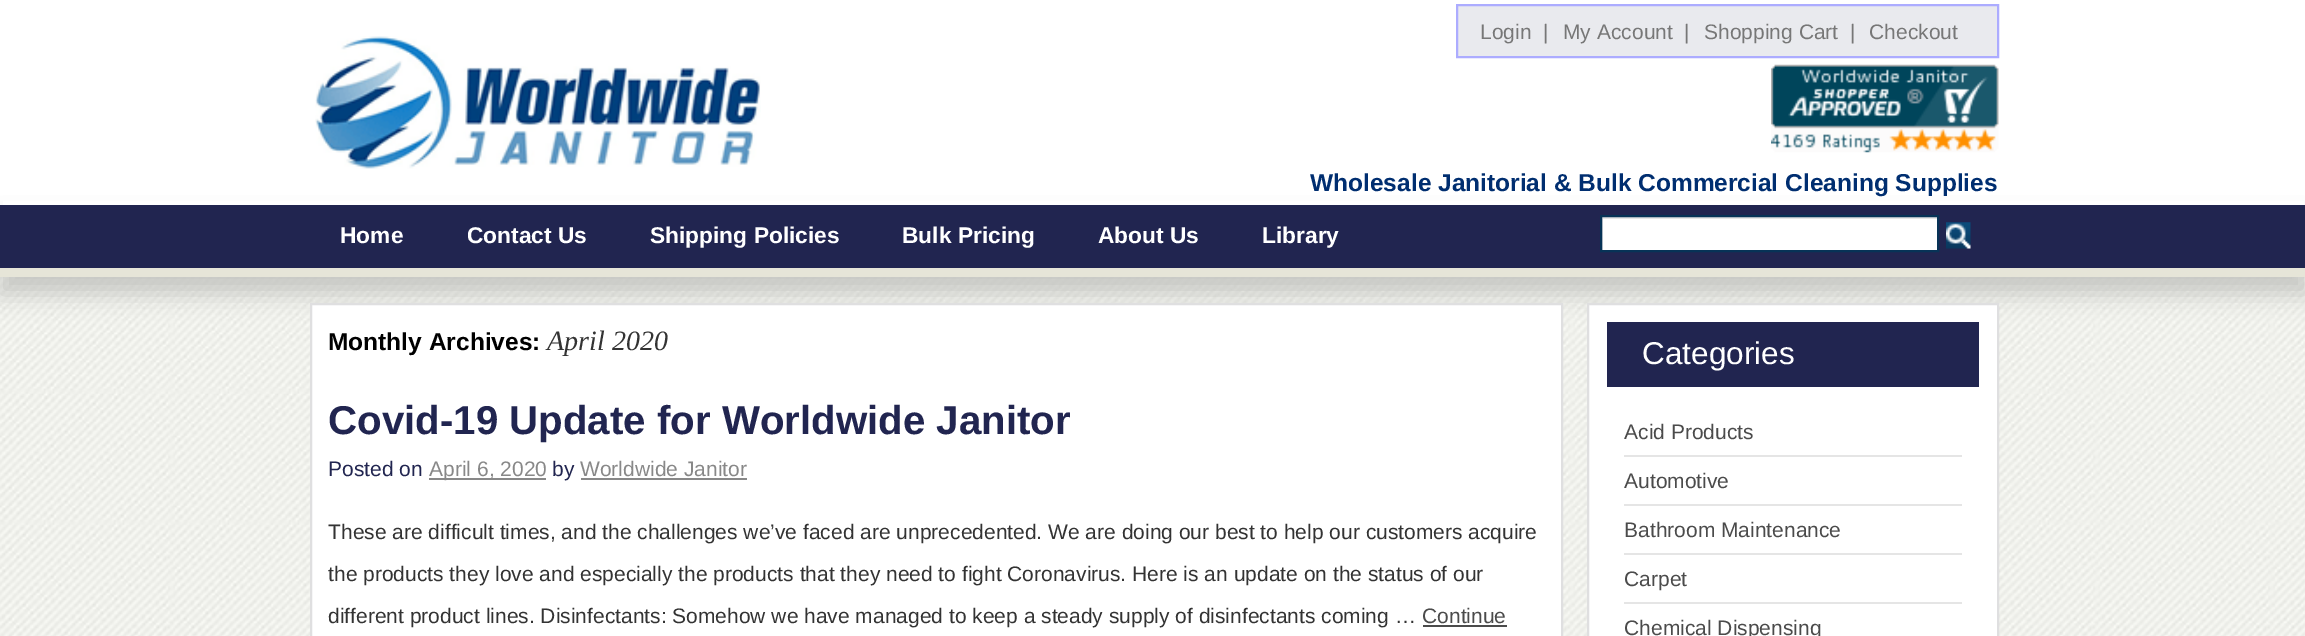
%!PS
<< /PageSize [2305 636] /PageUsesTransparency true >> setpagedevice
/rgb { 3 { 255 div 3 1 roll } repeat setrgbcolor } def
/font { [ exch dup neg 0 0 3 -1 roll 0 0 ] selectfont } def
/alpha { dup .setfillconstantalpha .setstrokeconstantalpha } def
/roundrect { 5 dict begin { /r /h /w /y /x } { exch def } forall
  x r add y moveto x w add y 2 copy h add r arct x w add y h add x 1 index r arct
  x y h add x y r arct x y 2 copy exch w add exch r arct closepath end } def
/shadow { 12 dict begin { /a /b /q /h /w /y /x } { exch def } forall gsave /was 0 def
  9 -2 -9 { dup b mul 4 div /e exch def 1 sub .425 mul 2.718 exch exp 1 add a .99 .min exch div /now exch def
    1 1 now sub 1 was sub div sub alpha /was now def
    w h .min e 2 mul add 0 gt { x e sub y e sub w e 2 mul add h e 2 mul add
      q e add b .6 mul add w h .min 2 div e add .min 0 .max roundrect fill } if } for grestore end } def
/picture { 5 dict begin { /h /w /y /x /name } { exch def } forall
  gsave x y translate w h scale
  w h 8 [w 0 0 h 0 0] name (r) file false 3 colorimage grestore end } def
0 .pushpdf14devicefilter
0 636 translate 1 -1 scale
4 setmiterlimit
255 255 255 rgb
0 0 2305 636 rectfill
(img/1.rgb) 0 277 2305 359 picture
198 199 195 rgb
0 222 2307 72 0 12 1 shadow
255 255 255 rgb
3 201 2301 4 rectfill
(img/2.rgb) 315 36 446 133 picture
233 234 238 rgb
1457 5 moveto 1998 5 lineto 1998 57 lineto 1457 57 lineto closepath gsave fill grestore
172 172 255 rgb
2 setlinewidth
stroke
(img/3.rgb) 1771 64 228 89 picture
[
  [0 205 2305 63 33 37 80]
  [0 268 2305 9 230 229 216]
  [1603 219 334 31 255 255 255]
] { aload pop rgb rectfill } forall
gsave
1601 217 336 33 rectclip
230 230 230 rgb
1428 44 moveto 2110 44 lineto 2110 424 lineto 1428 424 lineto closepath 1603 219 moveto 1939 219 lineto 1939 252 lineto 1603 252 lineto closepath eofill
grestore
7 51 87 rgb
1601 216 337 35 rectstroke
(img/4.rgb) 1946 222 25 27 picture
255 255 255 rgb
311 304 moveto 1562 304 lineto 1562 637 lineto 311 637 lineto closepath gsave fill grestore
223 223 224 rgb
stroke
[
  [429 478 117 2 136 136 136]
  [581 478 166 2 136 136 136]
  [1423 625 84 2 75 75 75]
] { aload pop rgb rectfill } forall
255 255 255 rgb
1588 304 moveto 1998 304 lineto 1998 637 lineto 1588 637 lineto closepath gsave fill grestore
223 223 224 rgb
stroke
[
  [1607 322 372 65 33 37 80]
  [1624 455 338 2 229 229 229]
  [1624 504 338 2 229 229 229]
  [1624 553 338 2 229 229 229]
  [1624 602 338 2 229 229 229]
] { aload pop rgb rectfill } forall
/LiberationSans-Regular 21 font
119 119 119 rgb
[
  [(Login  |) 1480 39]
  [(My Account  |) 1563 39]
  [(Shopping Cart  |) 1704 39]
  [(Checkout) 1869 39]
] { aload pop moveto show } forall
/LiberationSans-Bold 24.5 font
0 46 112 rgb
1310 191 moveto (Wholesale Janitorial & Bulk Commercial Cleaning Supplies) show
/LiberationSans-Bold 22.75 font
255 255 255 rgb
[
  [(Home) 340 243]
  [(Contact Us) 467 243]
  [(Shipping Policies) 650 243]
  [(Bulk Pricing) 902 243]
  [(About Us) 1098 243]
  [(Library) 1262 243]
] { aload pop moveto show } forall
/LiberationSans-Bold 24.5 font
0 0 0 rgb
328 350 moveto (Monthly Archives:) show
/LiberationSerif-Italic 28 font
51 51 51 rgb
547 350 moveto (April 2020) show
/LiberationSans-Bold 40.25 font
33 37 80 rgb
328 434 moveto (Covid-19 Update for Worldwide Janitor) show
/LiberationSans-Regular 21 font
328 476 moveto (Posted on) show
136 136 136 rgb
429 476 moveto (April 6, 2020) show
33 37 80 rgb
552 476 moveto (by) show
136 136 136 rgb
580 476 moveto (Worldwide Janitor) show
51 51 51 rgb
[
  [(These are difficult times, and the challenges we’ve faced are unprecedented. We are doing our best to help our customers acquire) 328 539]
  [(the products they love and especially the products that they need to fight Coronavirus. Here is an update on the status of our) 328 581]
  [(different product lines. Disinfectants: Somehow we have managed to keep a steady supply of disinfectants coming …) 328 623]
] { aload pop moveto show } forall
75 75 75 rgb
1422 623 moveto (Continue) show
/LiberationSans-Regular 31.5 font
255 255 255 rgb
1642 364 moveto (Categories) show
/LiberationSans-Regular 21 font
75 75 75 rgb
[
  [(Acid Products) 1624 439]
  [(Automotive) 1624 488]
  [(Bathroom Maintenance) 1624 537]
  [(Carpet) 1624 586]
  [(Chemical Dispensing) 1624 635]
] { aload pop moveto show } forall
.poppdf14devicefilter showpage
